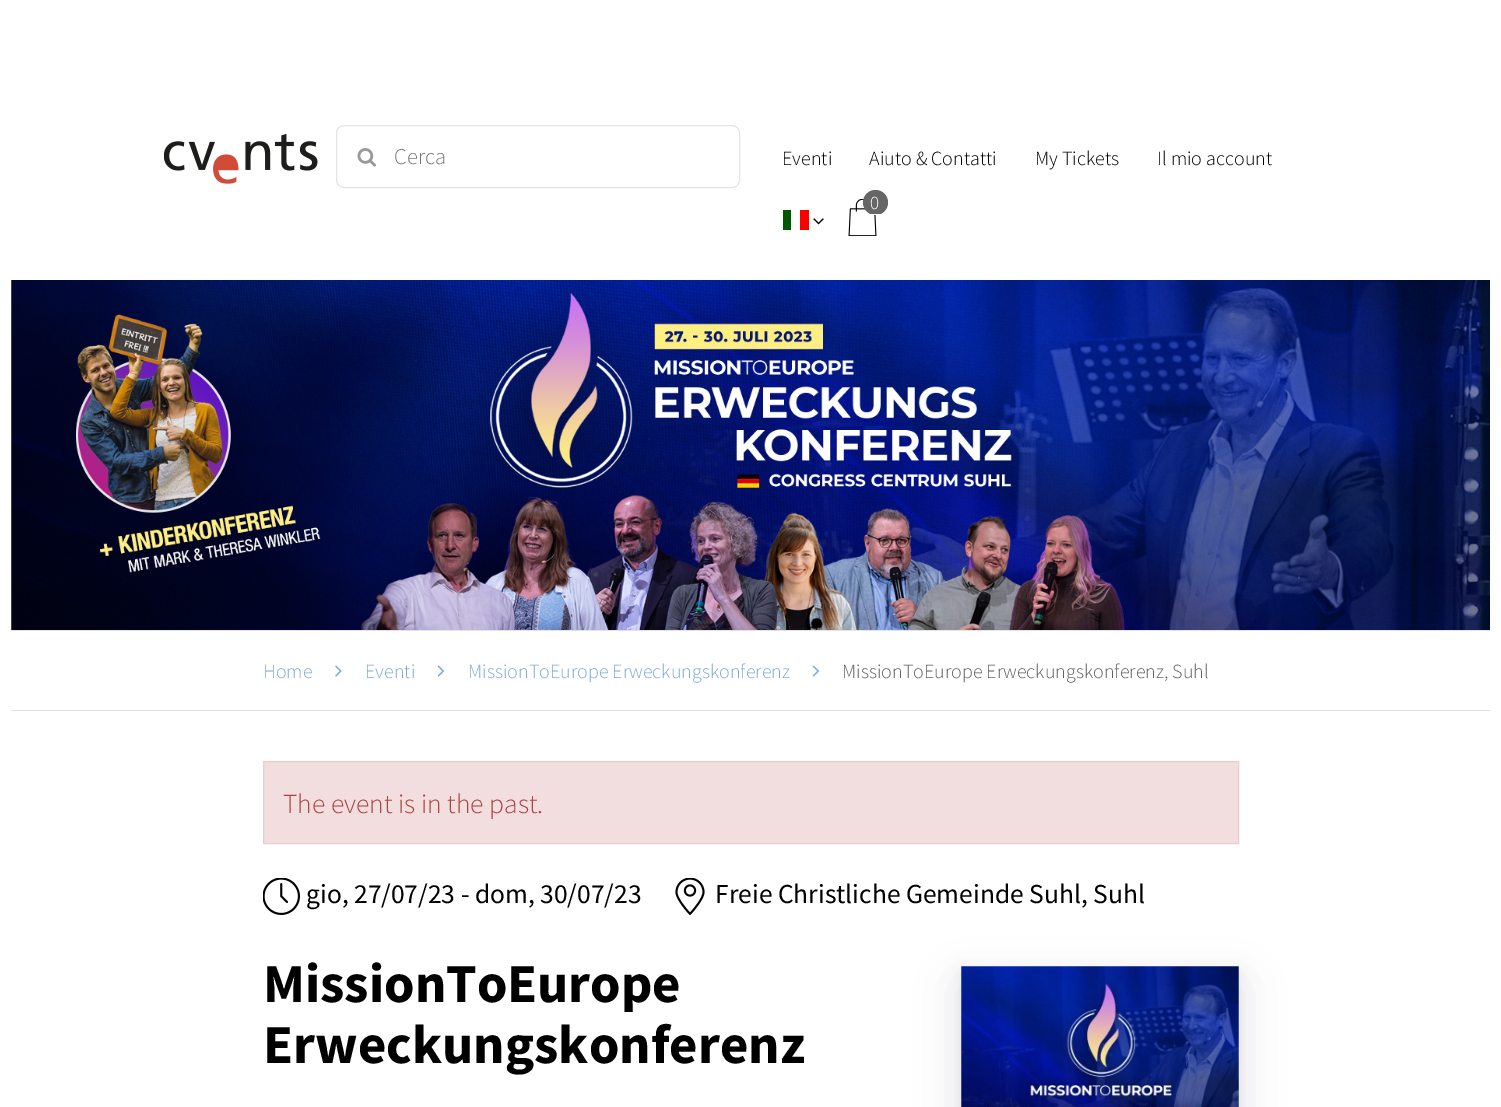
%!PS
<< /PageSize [1501 1107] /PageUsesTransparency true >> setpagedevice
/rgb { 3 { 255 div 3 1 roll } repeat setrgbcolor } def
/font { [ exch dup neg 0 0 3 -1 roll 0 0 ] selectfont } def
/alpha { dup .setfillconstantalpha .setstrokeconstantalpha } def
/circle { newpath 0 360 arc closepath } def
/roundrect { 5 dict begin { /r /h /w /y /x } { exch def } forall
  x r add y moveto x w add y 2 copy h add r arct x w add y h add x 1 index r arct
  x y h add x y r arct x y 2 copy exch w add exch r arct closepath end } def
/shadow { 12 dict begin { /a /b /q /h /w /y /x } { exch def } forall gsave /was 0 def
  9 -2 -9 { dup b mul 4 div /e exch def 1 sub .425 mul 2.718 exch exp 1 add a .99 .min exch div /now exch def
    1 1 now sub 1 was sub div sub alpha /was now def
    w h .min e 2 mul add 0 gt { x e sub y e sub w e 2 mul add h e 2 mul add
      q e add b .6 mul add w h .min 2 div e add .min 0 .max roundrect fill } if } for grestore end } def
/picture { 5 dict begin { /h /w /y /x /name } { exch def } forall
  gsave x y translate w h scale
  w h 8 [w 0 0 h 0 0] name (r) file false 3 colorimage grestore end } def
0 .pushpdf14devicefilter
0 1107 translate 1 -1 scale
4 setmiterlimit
255 255 255 rgb
0 0 1501 1107 rectfill
(img/1.rgb) 164 134 154 50 picture
228 228 228 rgb
336.5 125.5 403 62 7.5 roundrect stroke
(img/2.rgb) 357 148 19 19 picture
(img/3.rgb) 848 199 29 37 picture
102 102 102 rgb
875.5 202.5 12.5 circle fill
[
  [869 214 12 1 255 255 255]
  [783 210 8 20 0 87 0]
  [800 210 9 20 252 0 0]
] { aload pop rgb rectfill } forall
(img/4.rgb) 813 218 11 7 picture
(img/5.rgb) 11 280 1479 350 picture
228 228 228 rgb
11 630 1479 1 rectfill
11 710 1479 1 rectfill
(img/6.rgb) 335 665 7 12 picture
(img/7.rgb) 437 665 8 12 picture
(img/7.rgb) 812 665 8 12 picture
242 222 222 rgb
263.5 761.5 moveto 1238.5 761.5 lineto 1238.5 843.5 lineto 263.5 843.5 lineto closepath gsave fill grestore
235 204 209 rgb
stroke
(img/8.rgb) 263 878 37 37 picture
(img/9.rgb) 675 878 30 37 picture
0 0 0 rgb
961 973 278 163 0 9.5 0.07 shadow
50 50 93 rgb
961 985 278 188 0 22 0.1 shadow
(img/10.rgb) 961 966 278 141 picture
/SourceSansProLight-Light 22.5 font
117 117 117 rgb
394 164 moveto (Cerca) show
/SourceSansProLight-Light 20 font
0 0 0 rgb
[
  [(Eventi) 782 165]
  [(Aiuto & Contatti) 869 165]
  [(My Tickets) 1035 165]
  [(Il mio account) 1157 165]
] { aload pop moveto show } forall
/SourceSansProLight-Light 19 font
255 255 255 rgb
870 209 moveto (0) show
/SourceSansProLight-Light 20 font
123 170 215 rgb
[
  [(Home) 263 678]
  [(Eventi) 365 678]
  [(MissionToEurope Erweckungskonferenz) 468 678]
] { aload pop moveto show } forall
96 96 96 rgb
842 678 moveto (MissionToEurope Erweckungskonferenz, Suhl) show
/SourceSansProLight-Light 27.5 font
169 68 66 rgb
283 813 moveto (The event is in the past.) show
/SourceSansPro-Regular 27.5 font
0 0 0 rgb
306 903 moveto (gio, 27/07/23 - dom, 30/07/23) show
715 903 moveto (Freie Christliche Gemeinde Suhl, Suhl) show
/SourceSansPro-Bold 55 font
263 1002 moveto (MissionToEurope) show
263 1063 moveto (Erweckungskonferenz) show
.poppdf14devicefilter showpage
